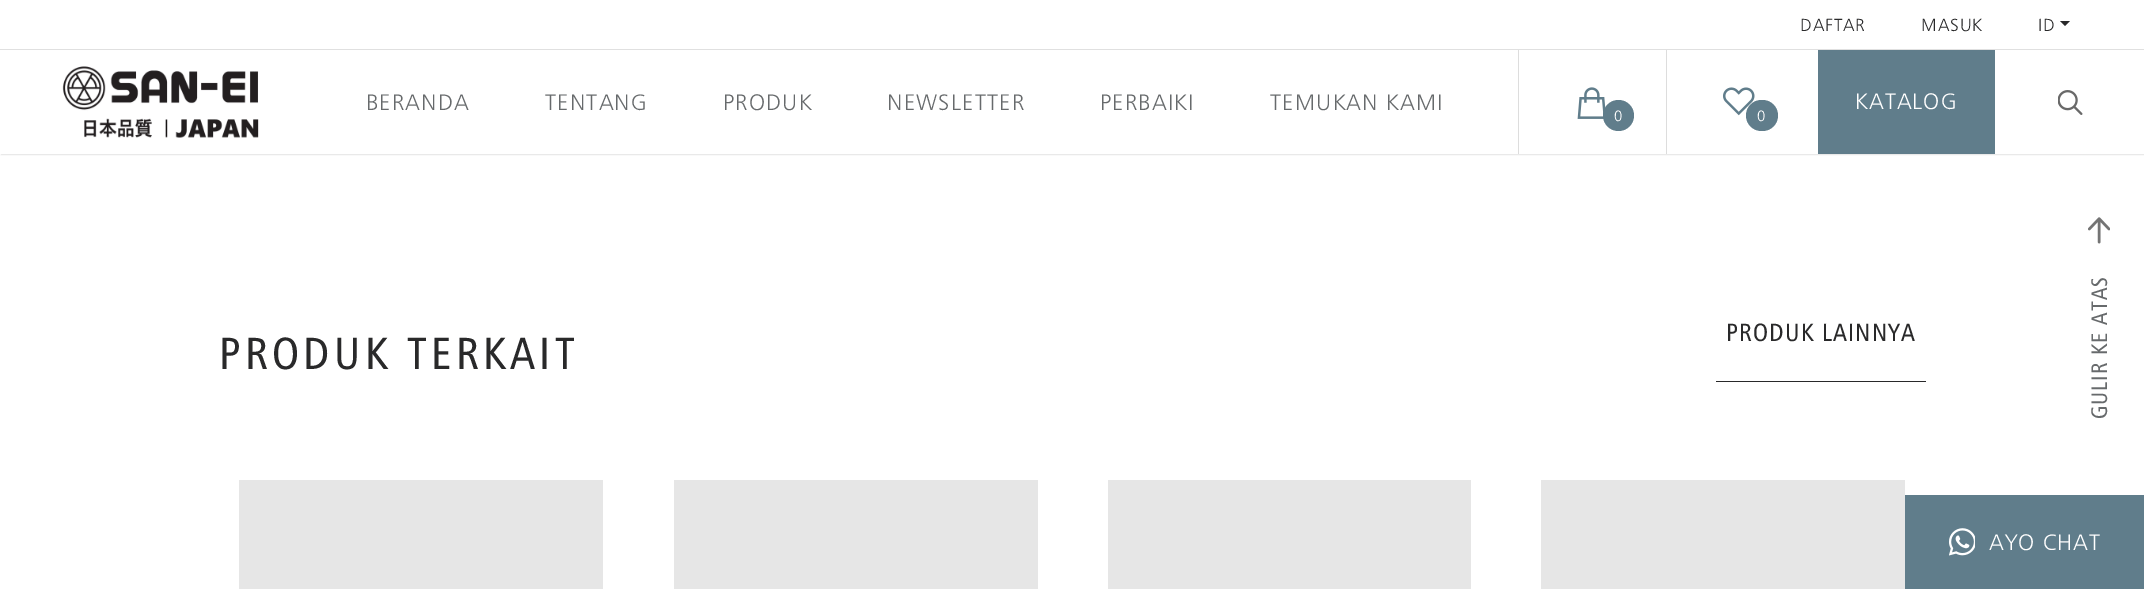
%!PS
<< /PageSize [2144 589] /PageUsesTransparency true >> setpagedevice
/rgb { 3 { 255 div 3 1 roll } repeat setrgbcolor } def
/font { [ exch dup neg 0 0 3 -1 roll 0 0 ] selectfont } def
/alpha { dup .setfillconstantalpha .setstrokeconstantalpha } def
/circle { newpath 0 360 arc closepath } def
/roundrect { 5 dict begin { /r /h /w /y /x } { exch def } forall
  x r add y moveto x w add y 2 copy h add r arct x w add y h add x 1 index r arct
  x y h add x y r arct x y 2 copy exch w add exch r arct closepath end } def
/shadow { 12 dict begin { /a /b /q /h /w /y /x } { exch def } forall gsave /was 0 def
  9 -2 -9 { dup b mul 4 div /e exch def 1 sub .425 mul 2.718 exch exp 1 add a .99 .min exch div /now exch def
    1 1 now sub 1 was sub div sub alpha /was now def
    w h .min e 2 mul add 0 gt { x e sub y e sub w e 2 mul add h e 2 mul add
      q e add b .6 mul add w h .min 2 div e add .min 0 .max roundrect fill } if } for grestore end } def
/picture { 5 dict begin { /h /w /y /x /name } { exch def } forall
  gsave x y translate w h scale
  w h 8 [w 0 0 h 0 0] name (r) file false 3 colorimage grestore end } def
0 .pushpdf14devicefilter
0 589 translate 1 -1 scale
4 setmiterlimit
255 255 255 rgb
0 0 2144 589 rectfill
0 0 0 rgb
1 51 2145 104 0 0.5 0.1 shadow
224 224 224 rgb
0 49 2144 1 rectfill
41 41 42 rgb
2060 21 moveto 2070 21 lineto 2065 26 lineto closepath fill
255 255 255 rgb
0 50 2144 104 rectfill
(img/1.rgb) 62 66 197 72 picture
96 125 139 rgb
1818 50 177 104 rectfill
(img/2.rgb) 2058 90 25 25 picture
221 221 221 rgb
1666 50 1 104 rectfill
1518 50 1 104 rectfill
(img/3.rgb) 1577 87 29 32 picture
96 125 139 rgb
1618.5 115.5 15.5 circle fill
(img/4.rgb) 1723 87 32 29 picture
1746 100 32 31 15.5 roundrect fill
[
  [1716 381 210 1 41 41 42]
  [239 480 364 109 230 230 230]
  [674 480 364 109 230 230 230]
  [1108 480 363 109 230 230 230]
  [1541 480 364 109 230 230 230]
] { aload pop rgb rectfill } forall
(img/5.rgb) 2088 217 22 27 picture
96 125 139 rgb
1905 495 239 94 rectfill
(img/6.rgb) 1949 528 26 28 picture
/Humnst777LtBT-Light 17.5 font
41 41 42 rgb
1800 31 moveto 1 0 (DAFTAR) ashow
1921 31 moveto 1 0 (MASUK) ashow
2038 31 moveto 1 0 (ID) ashow
/Humnst777LtBT-Light 22.5 font
103 106 108 rgb
366 110 moveto 1.25 0 (BERANDA) ashow
545 110 moveto 1.25 0 (TENTANG) ashow
723 110 moveto 1.25 0 (PRODUK) ashow
887 110 moveto 1.25 0 (NEWSLETTER) ashow
1100 110 moveto 1.25 0 (PERBAIKI) ashow
1270 110 moveto 1.25 0 (TEMUKAN KAMI) ashow
255 255 255 rgb
1855 109 moveto 1.25 0 (KATALOG) ashow
/Humnst777LtBT-Light 15 font
1614 121 moveto (0) show
1757 121 moveto 1.25 0 (0) ashow
/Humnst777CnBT-Regular 25 font
41 41 42 rgb
1726 341 moveto 1.25 0 (PRODUK LAINNYA) ashow
/Humnst777CnBT-Regular 45 font
219 369 moveto 4.5 0 (PRODUK TERKAIT) ashow
/Humnst777CnBT-Regular 22.5 font
103 106 108 rgb
gsave 2107 419 translate -90 rotate 0 0 moveto 1.1 0 (GULIR KE ATAS) ashow grestore
/Humnst777LtBT-Light 22.5 font
255 255 255 rgb
1989 550 moveto 1.1 0 (AYO CHAT) ashow
.poppdf14devicefilter showpage
